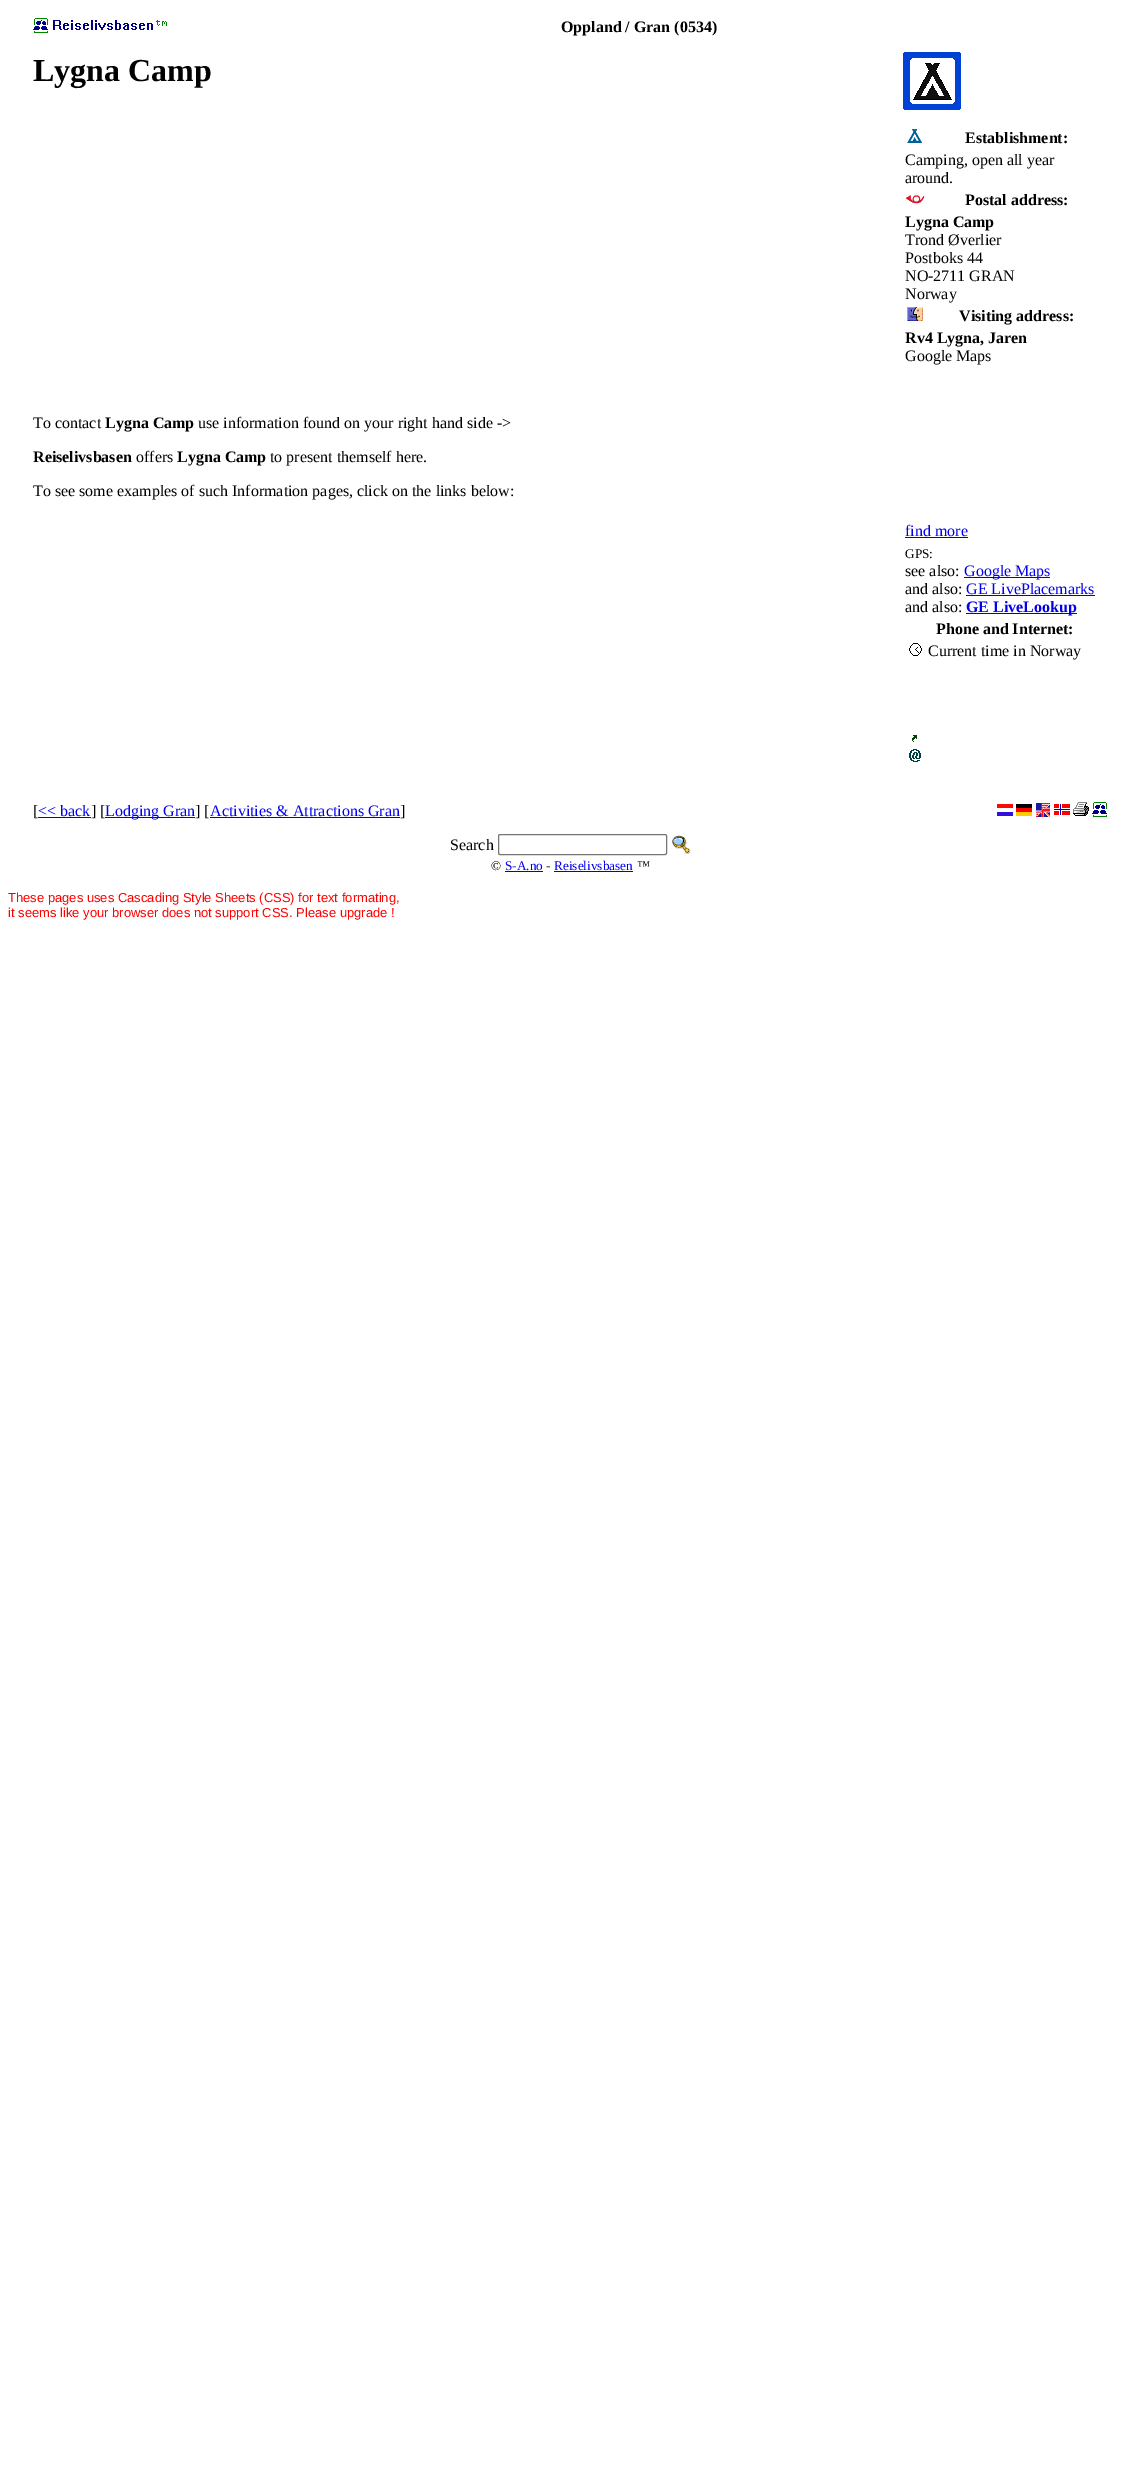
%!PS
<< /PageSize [1141 2486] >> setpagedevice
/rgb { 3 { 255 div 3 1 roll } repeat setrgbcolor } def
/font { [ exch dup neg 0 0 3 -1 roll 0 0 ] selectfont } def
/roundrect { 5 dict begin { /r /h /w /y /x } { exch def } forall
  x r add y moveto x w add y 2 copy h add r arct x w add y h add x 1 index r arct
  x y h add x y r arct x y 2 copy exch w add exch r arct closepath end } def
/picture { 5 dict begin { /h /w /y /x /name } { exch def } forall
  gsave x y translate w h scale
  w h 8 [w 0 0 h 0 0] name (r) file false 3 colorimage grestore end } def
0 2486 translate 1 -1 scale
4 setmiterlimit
255 255 255 rgb
0 0 1141 2486 rectfill
(img/1.rgb) 33 18 134 15 picture
(img/2.rgb) 903 52 58 58 picture
(img/3.rgb) 907 129 15 14 picture
(img/4.rgb) 906 195 19 9 picture
(img/5.rgb) 907 307 16 14 picture
[
  [905 537 63 1 0 0 238]
  [964 577 86 1 0 0 238]
  [966 595 129 1 0 0 238]
  [966 613 111 1 0 0 238]
] { aload pop rgb rectfill } forall
(img/6.rgb) 909 643 13 13 picture
(img/7.rgb) 912 735 5 7 picture
(img/8.rgb) 909 749 12 13 picture
[
  [38 817 53 1 0 0 238]
  [105 817 90 1 0 0 238]
  [210 817 190 1 0 0 238]
] { aload pop rgb rectfill } forall
(img/9.rgb) 997 804 16 12 picture
(img/10.rgb) 1016 804 16 12 picture
(img/11.rgb) 1036 803 14 14 picture
(img/12.rgb) 1054 804 16 11 picture
(img/13.rgb) 1073 802 16 14 picture
(img/14.rgb) 1092 802 15 15 picture
118 118 118 rgb
498.5 834.5 168 20 1.5 roundrect stroke
(img/15.rgb) 672 835 18 19 picture
0 0 238 rgb
505 871 38 1 rectfill
554 871 79 1 rectfill
/LiberationSerif-Bold 16 font
0 0 0 rgb
561 32 moveto (Oppland / Gran \(0534\)) show
/LiberationSerif-Bold 32 font
33 81 moveto (Lygna Camp) show
/LiberationSerif-Regular 16 font
33 428 moveto (To contact) show
/LiberationSerif-Bold 16 font
105 428 moveto (Lygna Camp) show
/LiberationSerif-Regular 16 font
198 428 moveto (use information found on your right hand side ->) show
/LiberationSerif-Bold 16 font
33 462 moveto (Reiselivsbasen) show
/LiberationSerif-Regular 16 font
136 462 moveto (offers) show
/LiberationSerif-Bold 16 font
177 462 moveto (Lygna Camp) show
/LiberationSerif-Regular 16 font
270 462 moveto (to present themself here.) show
33 496 moveto (To see some examples of such Information pages, click on the links below:) show
/LiberationSerif-Bold 16 font
965 143 moveto (Establishment:) show
/LiberationSerif-Regular 16 font
905 165 moveto (Camping, open all year) show
905 183 moveto (around.) show
/LiberationSerif-Bold 16 font
965 205 moveto (Postal address:) show
905 227 moveto (Lygna Camp) show
/LiberationSerif-Regular 16 font
[
  [(Trond Øverlier) 905 245]
  [(Postboks 44) 905 263]
  [(NO-2711 GRAN) 905 281]
  [(Norway) 905 299]
] { aload pop moveto show } forall
/LiberationSerif-Bold 16 font
959 321 moveto (Visiting address:) show
905 343 moveto (Rv4 Lygna, Jaren) show
/LiberationSerif-Regular 16 font
905 361 moveto (Google Maps) show
0 0 238 rgb
905 536 moveto (find more) show
/LiberationSerif-Regular 13.25 font
0 0 0 rgb
905 558 moveto (GPS:) show
/LiberationSerif-Regular 16 font
905 576 moveto (see also:) show
0 0 238 rgb
964 576 moveto (Google Maps) show
0 0 0 rgb
905 594 moveto (and also:) show
0 0 238 rgb
966 594 moveto (GE LivePlacemarks) show
0 0 0 rgb
905 612 moveto (and also:) show
/LiberationSerif-Bold 16 font
0 0 238 rgb
966 612 moveto (GE LiveLookup) show
0 0 0 rgb
936 634 moveto (Phone and Internet:) show
/LiberationSerif-Regular 16 font
928 656 moveto (Current time in Norway) show
33 816 moveto ([) show
0 0 238 rgb
38 816 moveto (<< back) show
0 0 0 rgb
91 816 moveto (] [) show
0 0 238 rgb
105 816 moveto (Lodging Gran) show
0 0 0 rgb
195 816 moveto (] [) show
0 0 238 rgb
210 816 moveto (Activities & Attractions Gran) show
0 0 0 rgb
400 816 moveto (]) show
450 850 moveto (Search) show
/LiberationSerif-Regular 13.25 font
491 870 moveto (©) show
0 0 238 rgb
505 870 moveto (S-A.no) show
0 0 0 rgb
546 870 moveto (-) show
0 0 238 rgb
554 870 moveto (Reiselivsbasen) show
0 0 0 rgb
637 870 moveto (™) show
/LiberationSans-Regular 13 font
255 0 0 rgb
8 902 moveto (These pages uses Cascading Style Sheets \(CSS\) for text formating,) show
8 917 moveto (it seems like your browser does not support CSS. Please upgrade !) show
showpage
